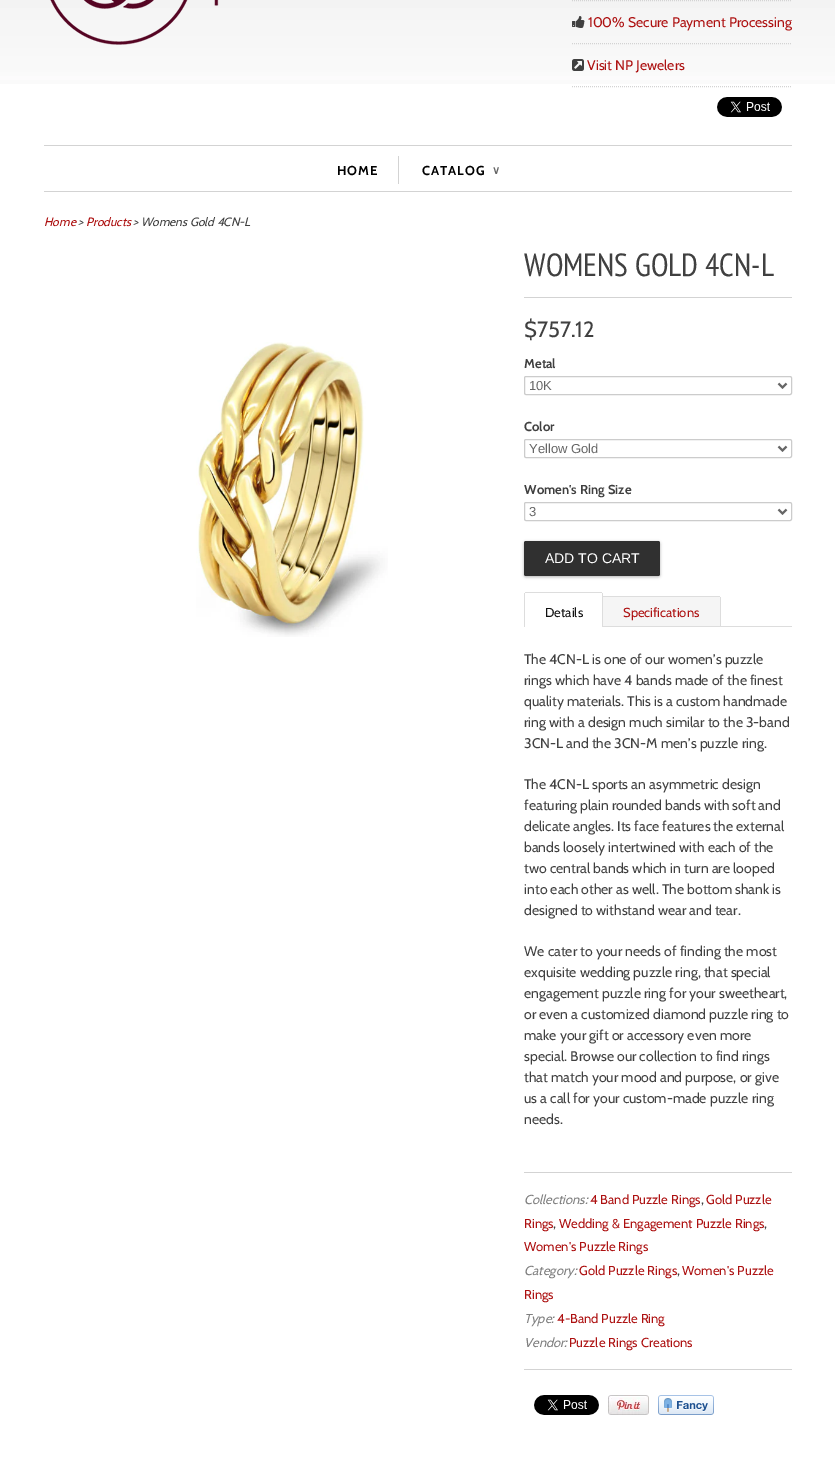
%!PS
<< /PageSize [835 1463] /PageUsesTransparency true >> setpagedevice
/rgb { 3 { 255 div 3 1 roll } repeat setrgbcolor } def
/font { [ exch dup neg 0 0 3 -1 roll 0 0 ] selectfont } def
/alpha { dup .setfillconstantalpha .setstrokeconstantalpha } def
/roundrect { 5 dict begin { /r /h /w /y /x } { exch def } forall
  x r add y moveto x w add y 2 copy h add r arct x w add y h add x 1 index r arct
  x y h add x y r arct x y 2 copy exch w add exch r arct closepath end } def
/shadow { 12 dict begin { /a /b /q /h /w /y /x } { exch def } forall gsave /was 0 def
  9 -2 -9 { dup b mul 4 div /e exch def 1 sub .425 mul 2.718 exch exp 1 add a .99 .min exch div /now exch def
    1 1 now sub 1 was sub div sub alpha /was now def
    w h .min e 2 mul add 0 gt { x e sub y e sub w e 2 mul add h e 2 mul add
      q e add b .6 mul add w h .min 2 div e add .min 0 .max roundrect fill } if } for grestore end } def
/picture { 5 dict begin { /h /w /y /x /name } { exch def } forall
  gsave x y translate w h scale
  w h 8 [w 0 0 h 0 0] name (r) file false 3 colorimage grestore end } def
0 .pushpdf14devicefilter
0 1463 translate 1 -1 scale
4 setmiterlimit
255 255 255 rgb
0 0 835 1463 rectfill
(img/1.rgb) 0 0 835 84 picture
(img/2.rgb) 50 0 169 45 picture
211 211 211 rgb
[1 1] 0 setdash
572 0.5 moveto 792 0.5 lineto stroke
572 43.5 moveto 792 43.5 lineto stroke
(img/3.rgb) 572 16 13 12 picture
572 86.5 moveto 792 86.5 lineto stroke
(img/4.rgb) 572 59 12 12 picture
(img/5.rgb) 717 97 65 20 picture
[
  [44 145 748 1 211 211 211]
  [44 191 748 1 211 211 211]
  [398 156 1 28 211 211 211]
] { aload pop rgb rectfill } forall
(img/6.rgb) 196 342 192 295 picture
524 297 268 1 rectfill
204 204 204 rgb
[] 0 setdash
524.5 376.5 267 18 1.5 roundrect stroke
102 102 102 rgb
2 setlinewidth
778.5 383.5 moveto 782.5 387.5 lineto 786.5 383.5 lineto stroke
204 204 204 rgb
1 setlinewidth
524.5 439.5 267 18 1.5 roundrect stroke
102 102 102 rgb
2 setlinewidth
778.5 446.5 moveto 782.5 450.5 lineto 786.5 446.5 lineto stroke
204 204 204 rgb
1 setlinewidth
524.5 502.5 267 18 1.5 roundrect stroke
102 102 102 rgb
2 setlinewidth
778.5 509.5 moveto 782.5 513.5 lineto 786.5 509.5 lineto stroke
0 0 0 rgb
524 542 136 35 2 1.5 0.3 shadow
48 48 48 rgb
524 541 136 35 2 roundrect fill
[
  [603 626 189 1 221 221 221]
  [525 592 77 1 221 221 221]
  [602 596 118 1 221 221 221]
  [602 593 1 34 221 221 221]
  [524 593 1 34 221 221 221]
] { aload pop rgb rectfill } forall
245 245 245 rgb
603 597 moveto 719 597 lineto 719.5 597 720 597.5 720 598 curveto 720 626 lineto 603 626 lineto closepath fill
[
  [720 597 1 29 221 221 221]
  [524 1172 268 1 211 211 211]
  [524 1369 268 1 211 211 211]
] { aload pop rgb rectfill } forall
(img/5.rgb) 534 1395 65 20 picture
(img/7.rgb) 608 1395 41 20 picture
(img/8.rgb) 658 1395 56 20 picture
/Cabin-Regular 14 font
173 17 17 rgb
588 27 moveto (100% Secure Payment Processing) show
587 70 moveto (Visit NP Jewelers) show
/Cabin-Bold 13 font
0 0 0 rgb
337 175 moveto 1 0 (HOME) ashow
422 175 moveto 1 0 (CATALOG) ashow
/DejaVuSans-Bold 11 font
102 102 102 rgb
492 174 moveto 1 0 (∨) ashow
/Cabin-Italic 12 font
173 17 17 rgb
44 226 moveto (Home) show
64 64 64 rgb
78 226 moveto (>) show
173 17 17 rgb
86 226 moveto (Products) show
64 64 64 rgb
133 226 moveto (> Womens Gold 4CN-L) show
/PTSansNarrow-Regular 32 font
524 276 moveto (WOMENS GOLD 4CN-L) show
/Cabin-Regular 22 font
524 337 moveto ($757.12) show
/Cabin-Bold 13 font
524 368 moveto (Metal) show
/LiberationSans-Regular 13 font
102 102 102 rgb
529 390 moveto (10K) show
/Cabin-Bold 13 font
64 64 64 rgb
524 431 moveto (Color) show
/LiberationSans-Regular 13 font
102 102 102 rgb
529 453 moveto (Yellow Gold) show
/Cabin-Bold 13 font
64 64 64 rgb
524 494 moveto (Women's Ring Size) show
/LiberationSans-Regular 13 font
102 102 102 rgb
529 516 moveto (3) show
/LiberationSans-Regular 14 font
255 255 255 rgb
545 563 moveto (ADD TO CART) show
/Cabin-Regular 13 font
17 17 17 rgb
545 617 moveto (Details) show
173 17 17 rgb
623 617 moveto (Specifications) show
/Cabin-Regular 14 font
64 64 64 rgb
[
  [(The 4CN-L is one of our women’s puzzle) 524 664]
  [(rings which have 4 bands made of the finest) 524 685]
  [(quality materials. This is a custom handmade) 524 706]
  [(ring with a design much similar to the 3-band) 524 727]
  [(3CN-L and the 3CN-M men’s puzzle ring.) 524 748]
  [(The 4CN-L sports an asymmetric design) 524 789]
  [(featuring plain rounded bands with soft and) 524 810]
  [(delicate angles. Its face features the external) 524 831]
  [(bands loosely intertwined with each of the) 524 852]
  [(two central bands which in turn are looped) 524 873]
  [(into each other as well. The bottom shank is) 524 894]
  [(designed to withstand wear and tear.) 524 915]
  [(We cater to your needs of finding the most) 524 956]
  [(exquisite wedding puzzle ring, that special) 524 977]
  [(engagement puzzle ring for your sweetheart,) 524 998]
  [(or even a customized diamond puzzle ring to) 524 1019]
  [(make your gift or accessory even more) 524 1040]
  [(special. Browse our collection to find rings) 524 1061]
  [(that match your mood and purpose, or give) 524 1082]
  [(us a call for your custom-made puzzle ring) 524 1103]
  [(needs.) 524 1124]
] { aload pop moveto show } forall
/Cabin-Italic 13 font
128 128 128 rgb
524 1204 moveto (Collections:) show
/Cabin-Regular 13 font
173 17 17 rgb
590 1204 moveto (4 Band Puzzle Rings) show
64 64 64 rgb
701 1204 moveto (,) show
173 17 17 rgb
706 1204 moveto (Gold Puzzle) show
524 1228 moveto (Rings) show
64 64 64 rgb
553 1228 moveto (,) show
173 17 17 rgb
559 1228 moveto (Wedding & Engagement Puzzle Rings) show
64 64 64 rgb
764 1228 moveto (,) show
173 17 17 rgb
524 1251 moveto (Women's Puzzle Rings) show
/Cabin-Italic 13 font
128 128 128 rgb
524 1275 moveto (Category:) show
/Cabin-Regular 13 font
173 17 17 rgb
579 1275 moveto (Gold Puzzle Rings) show
64 64 64 rgb
677 1275 moveto (,) show
173 17 17 rgb
682 1275 moveto (Women's Puzzle) show
524 1299 moveto (Rings) show
/Cabin-Italic 13 font
128 128 128 rgb
524 1323 moveto (Type:) show
/Cabin-Regular 13 font
173 17 17 rgb
557 1323 moveto (4-Band Puzzle Ring) show
/Cabin-Italic 13 font
128 128 128 rgb
524 1347 moveto (Vendor:) show
/Cabin-Regular 13 font
173 17 17 rgb
569 1347 moveto (Puzzle Rings Creations) show
.poppdf14devicefilter showpage
